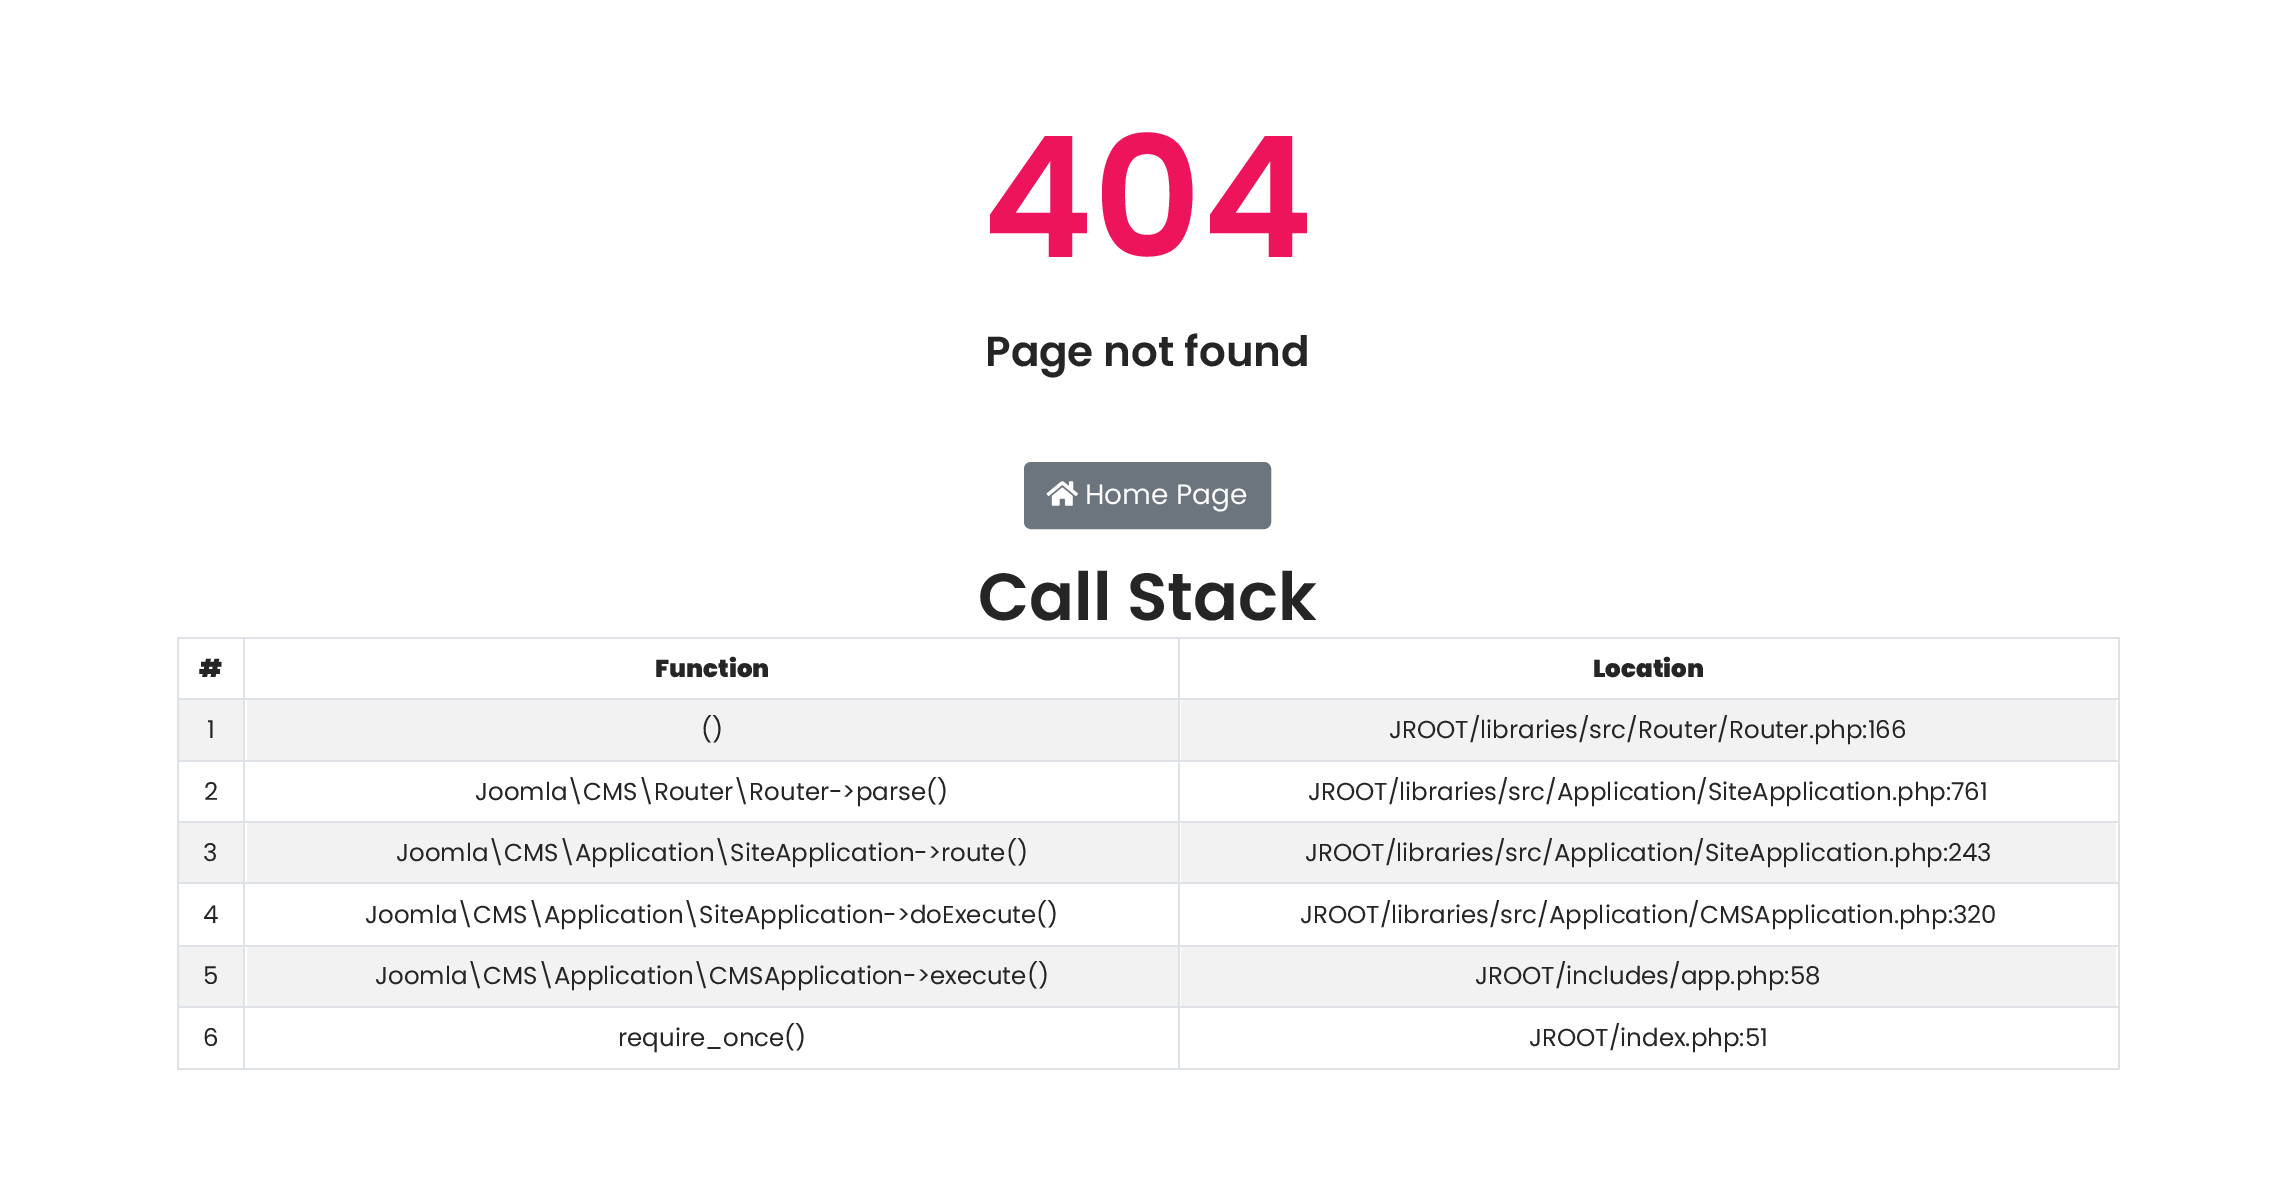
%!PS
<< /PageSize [2294 1195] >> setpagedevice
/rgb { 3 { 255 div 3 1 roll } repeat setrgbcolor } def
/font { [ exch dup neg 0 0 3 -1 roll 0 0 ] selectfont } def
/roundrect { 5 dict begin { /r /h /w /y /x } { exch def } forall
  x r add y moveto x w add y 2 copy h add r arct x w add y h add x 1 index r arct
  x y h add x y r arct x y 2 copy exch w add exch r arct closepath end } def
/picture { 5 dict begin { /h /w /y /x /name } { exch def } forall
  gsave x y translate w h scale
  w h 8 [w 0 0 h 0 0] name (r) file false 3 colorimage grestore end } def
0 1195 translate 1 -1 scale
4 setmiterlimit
255 255 255 rgb
0 0 2294 1195 rectfill
108 117 125 rgb
1025 463 245 65 6 roundrect gsave fill grestore
2 setlinewidth
stroke
(img/1.rgb) 1046 481 32 25 picture
[
  [177 637 1942 2 222 226 230]
  [177 698 1942 2 222 226 230]
  [179 700 64 60 242 242 242]
  [247 700 931 60 242 242 242]
  [1181 700 935 60 242 242 242]
  [177 760 1942 2 222 226 230]
  [177 821 1942 2 222 226 230]
  [179 823 64 59 242 242 242]
  [247 823 931 59 242 242 242]
  [1181 823 935 59 242 242 242]
  [177 882 1942 2 222 226 230]
  [177 945 1942 2 222 226 230]
  [179 947 64 59 242 242 242]
  [247 947 931 59 242 242 242]
  [1181 947 935 59 242 242 242]
  [177 1006 1942 2 222 226 230]
  [177 1068 1942 2 222 226 230]
  [177 637 2 432 222 226 230]
  [243 637 2 432 222 226 230]
  [2118 637 2 432 222 226 230]
  [1178 637 2 432 222 226 230]
] { aload pop rgb rectfill } forall
/Poppins-SemiBold 168 font
237 20 91 rgb
982 257 moveto (404) show
/Poppins-SemiBold 42 font
37 37 37 rgb
985 366 moveto (Page not found) show
/Poppins-Regular 28 font
255 255 255 rgb
1085 504 moveto (Home Page) show
/Poppins-SemiBold 66.5 font
37 37 37 rgb
978 620 moveto (Call Stack) show
/Poppins-Black 24.5 font
[
  [(#) 199 677]
  [(Function) 655 677]
  [(Location) 1593 677]
] { aload pop moveto show } forall
/Poppins-Regular 24.5 font
[
  [(1) 207 738]
  [(\(\)) 701 738]
  [(JROOT/libraries/src/Router/Router.php:166) 1389 738]
  [(2) 204 800]
  [(Joomla\\CMS\\Router\\Router->parse\(\)) 475 800]
  [(JROOT/libraries/src/Application/SiteApplication.php:761) 1308 800]
  [(3) 203 861]
  [(Joomla\\CMS\\Application\\SiteApplication->route\(\)) 396 861]
  [(JROOT/libraries/src/Application/SiteApplication.php:243) 1305 861]
  [(4) 203 923]
  [(Joomla\\CMS\\Application\\SiteApplication->doExecute\(\)) 365 923]
  [(JROOT/libraries/src/Application/CMSApplication.php:320) 1300 923]
  [(5) 203 984]
  [(Joomla\\CMS\\Application\\CMSApplication->execute\(\)) 375 984]
  [(JROOT/includes/app.php:58) 1475 984]
  [(6) 203 1046]
  [(require_once\(\)) 618 1046]
  [(JROOT/index.php:51) 1529 1046]
] { aload pop moveto show } forall
showpage
